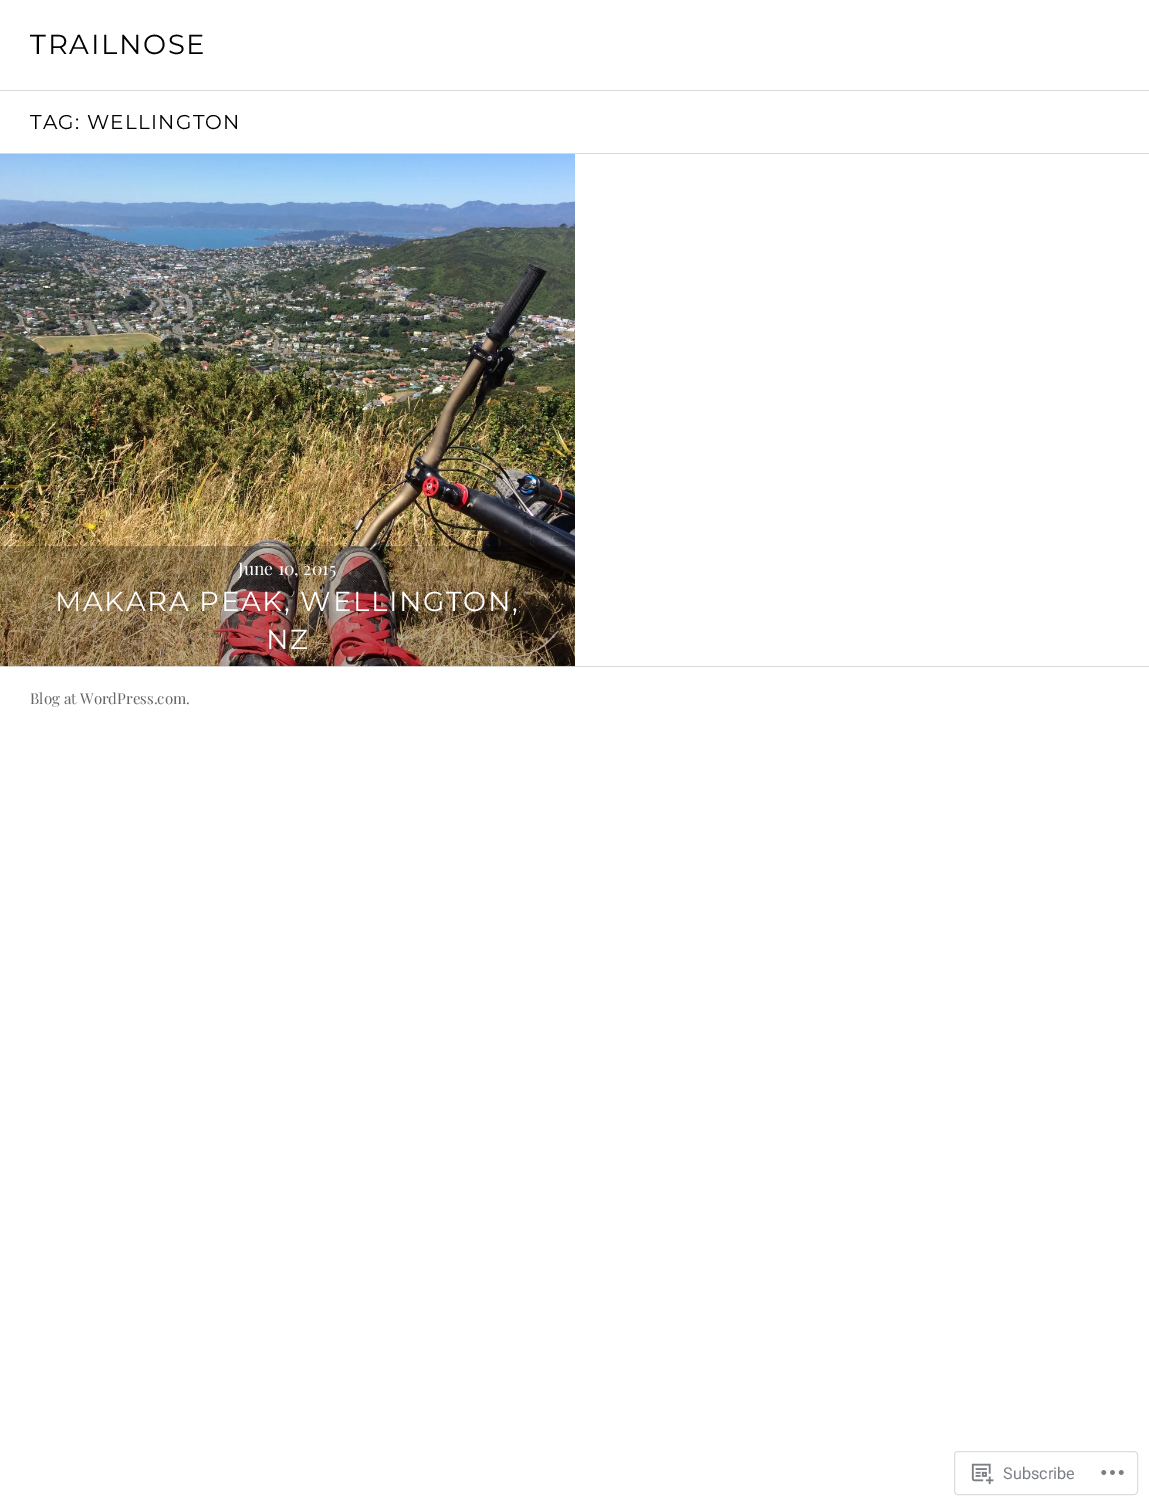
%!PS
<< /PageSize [1149 1507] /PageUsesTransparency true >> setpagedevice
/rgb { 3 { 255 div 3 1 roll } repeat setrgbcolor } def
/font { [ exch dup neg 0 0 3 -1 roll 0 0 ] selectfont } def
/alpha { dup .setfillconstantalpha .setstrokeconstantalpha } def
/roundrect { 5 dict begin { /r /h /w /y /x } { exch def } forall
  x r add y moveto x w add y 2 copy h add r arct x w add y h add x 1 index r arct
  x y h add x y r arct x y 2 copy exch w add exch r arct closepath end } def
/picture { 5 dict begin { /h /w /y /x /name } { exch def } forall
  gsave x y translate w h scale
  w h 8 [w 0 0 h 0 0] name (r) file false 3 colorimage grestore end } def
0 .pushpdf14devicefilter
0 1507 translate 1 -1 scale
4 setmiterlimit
255 255 255 rgb
0 0 1149 1507 rectfill
[
  [0 90 1149 1 217 217 217]
  [0 153 1149 1 217 217 217]
  [0 666 1149 1 217 217 217]
] { aload pop rgb rectfill } forall
(img/1.rgb) 0 154 575 513 picture
0.25 alpha
0 0 0 rgb
0 546 575 120 rectfill
1 alpha
221 221 223 rgb
954.5 1451.5 183 43 3.5 roundrect stroke
(img/2.rgb) 971 1463 23 22 picture
(img/3.rgb) 1101 1470 23 5 picture
/Montserrat-Regular 27.5 font
0 0 0 rgb
30 54 moveto 1.75 0 (TRAILNOSE) ashow
/Montserrat-Regular 20 font
30 129 moveto 1.25 0 (TAG: WELLINGTON) ashow
/PlayfairDisplay-Regular 17.5 font
255 255 255 rgb
238 575 moveto (June 10, 2015) show
/Montserrat-Regular 27.5 font
55 611 moveto 1.75 0 (MAKARA PEAK, WELLINGTON,) ashow
266 649 moveto 1.75 0 (NZ) ashow
/PlayfairDisplay-Regular 15 font
102 102 102 rgb
30 704 moveto (Blog at WordPress.com.) show
/Roboto-Regular 16.25 font
123 127 133 rgb
1003 1479 moveto (Subscribe) show
.poppdf14devicefilter showpage
